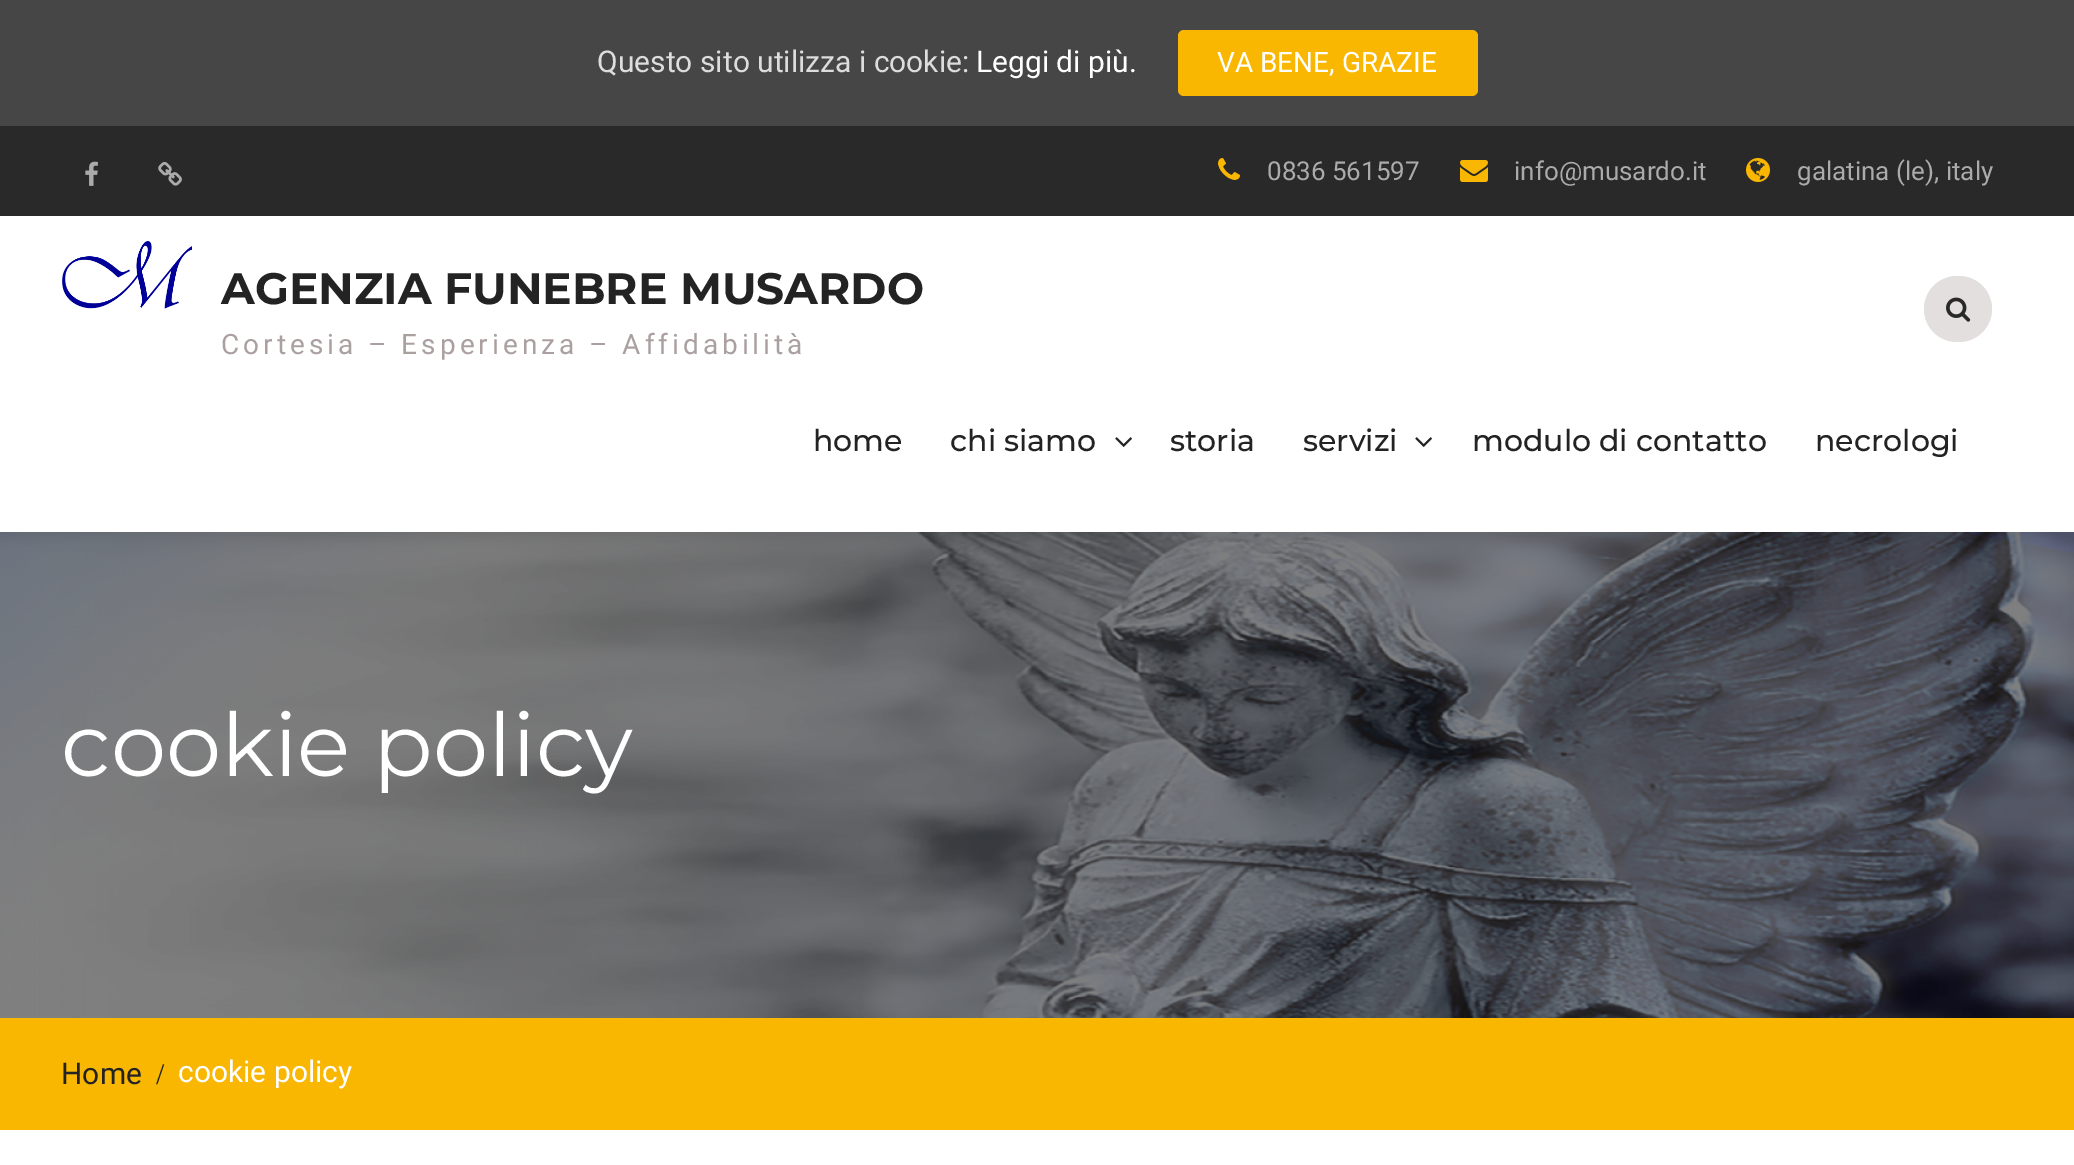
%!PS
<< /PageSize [2074 1165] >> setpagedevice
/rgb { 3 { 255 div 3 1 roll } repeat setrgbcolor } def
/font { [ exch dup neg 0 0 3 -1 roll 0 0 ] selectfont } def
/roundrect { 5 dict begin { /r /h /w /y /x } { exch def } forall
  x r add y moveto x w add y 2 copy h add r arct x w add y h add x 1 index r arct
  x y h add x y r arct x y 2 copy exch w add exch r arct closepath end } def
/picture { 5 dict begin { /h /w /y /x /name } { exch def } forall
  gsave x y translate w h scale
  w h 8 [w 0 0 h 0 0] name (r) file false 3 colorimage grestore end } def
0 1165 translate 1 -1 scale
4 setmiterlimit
255 255 255 rgb
0 0 2074 1165 rectfill
70 70 70 rgb
0 0 2074 126 rectfill
250 183 2 rgb
1178 30 300 66 6 roundrect fill
41 41 41 rgb
0 126 2074 90 rectfill
(img/1.rgb) 85 161 13 25 picture
(img/2.rgb) 158 161 24 25 picture
(img/3.rgb) 1218 158 22 22 picture
(img/4.rgb) 1460 160 28 22 picture
(img/5.rgb) 1746 158 24 24 picture
(img/6.rgb) 62 241 130 68 picture
228 223 223 rgb
1924 276 68 66 33 roundrect fill
(img/7.rgb) 1946 297 25 25 picture
(img/8.rgb) 1115 437 17 10 picture
(img/8.rgb) 1415 437 17 10 picture
(img/9.rgb) 0 532 2074 486 picture
250 183 2 rgb
0 1018 2074 112 rectfill
/Roboto-Regular 30 font
221 221 221 rgb
597 72 moveto (Questo sito utilizza i cookie:) show
255 255 255 rgb
976 72 moveto (Leggi di più.) show
/Roboto-Regular 28 font
1217 72 moveto (VA BENE, GRAZIE) show
/Roboto-Regular 26 font
171 171 171 rgb
[
  [(0836 561597) 1267 180]
  [(info@musardo.it) 1514 180]
  [(galatina \(le\), italy) 1797 180]
] { aload pop moveto show } forall
/Montserrat-Bold 44 font
35 35 35 rgb
221 304 moveto (AGENZIA FUNEBRE MUSARDO) show
/Roboto-Regular 28 font
171 160 160 rgb
221 354 moveto 4 0 (Cortesia – Esperienza – Affidabilità) ashow
/Montserrat-Medium 30 font
35 35 35 rgb
[
  [(home) 813 451]
  [(chi siamo) 950 451]
  [(storia) 1170 451]
  [(servizi) 1303 451]
  [(modulo di contatto) 1472 451]
  [(necrologi) 1815 451]
] { aload pop moveto show } forall
/Montserrat-Regular 88 font
255 255 255 rgb
61 776 moveto (cookie policy) show
/Roboto-Regular 30 font
35 35 35 rgb
61 1084 moveto (Home) show
/LiberationSerif-Regular 30 font
156 1084 moveto (/) show
/Roboto-Regular 30 font
255 255 255 rgb
178 1082 moveto (cookie policy) show
showpage
